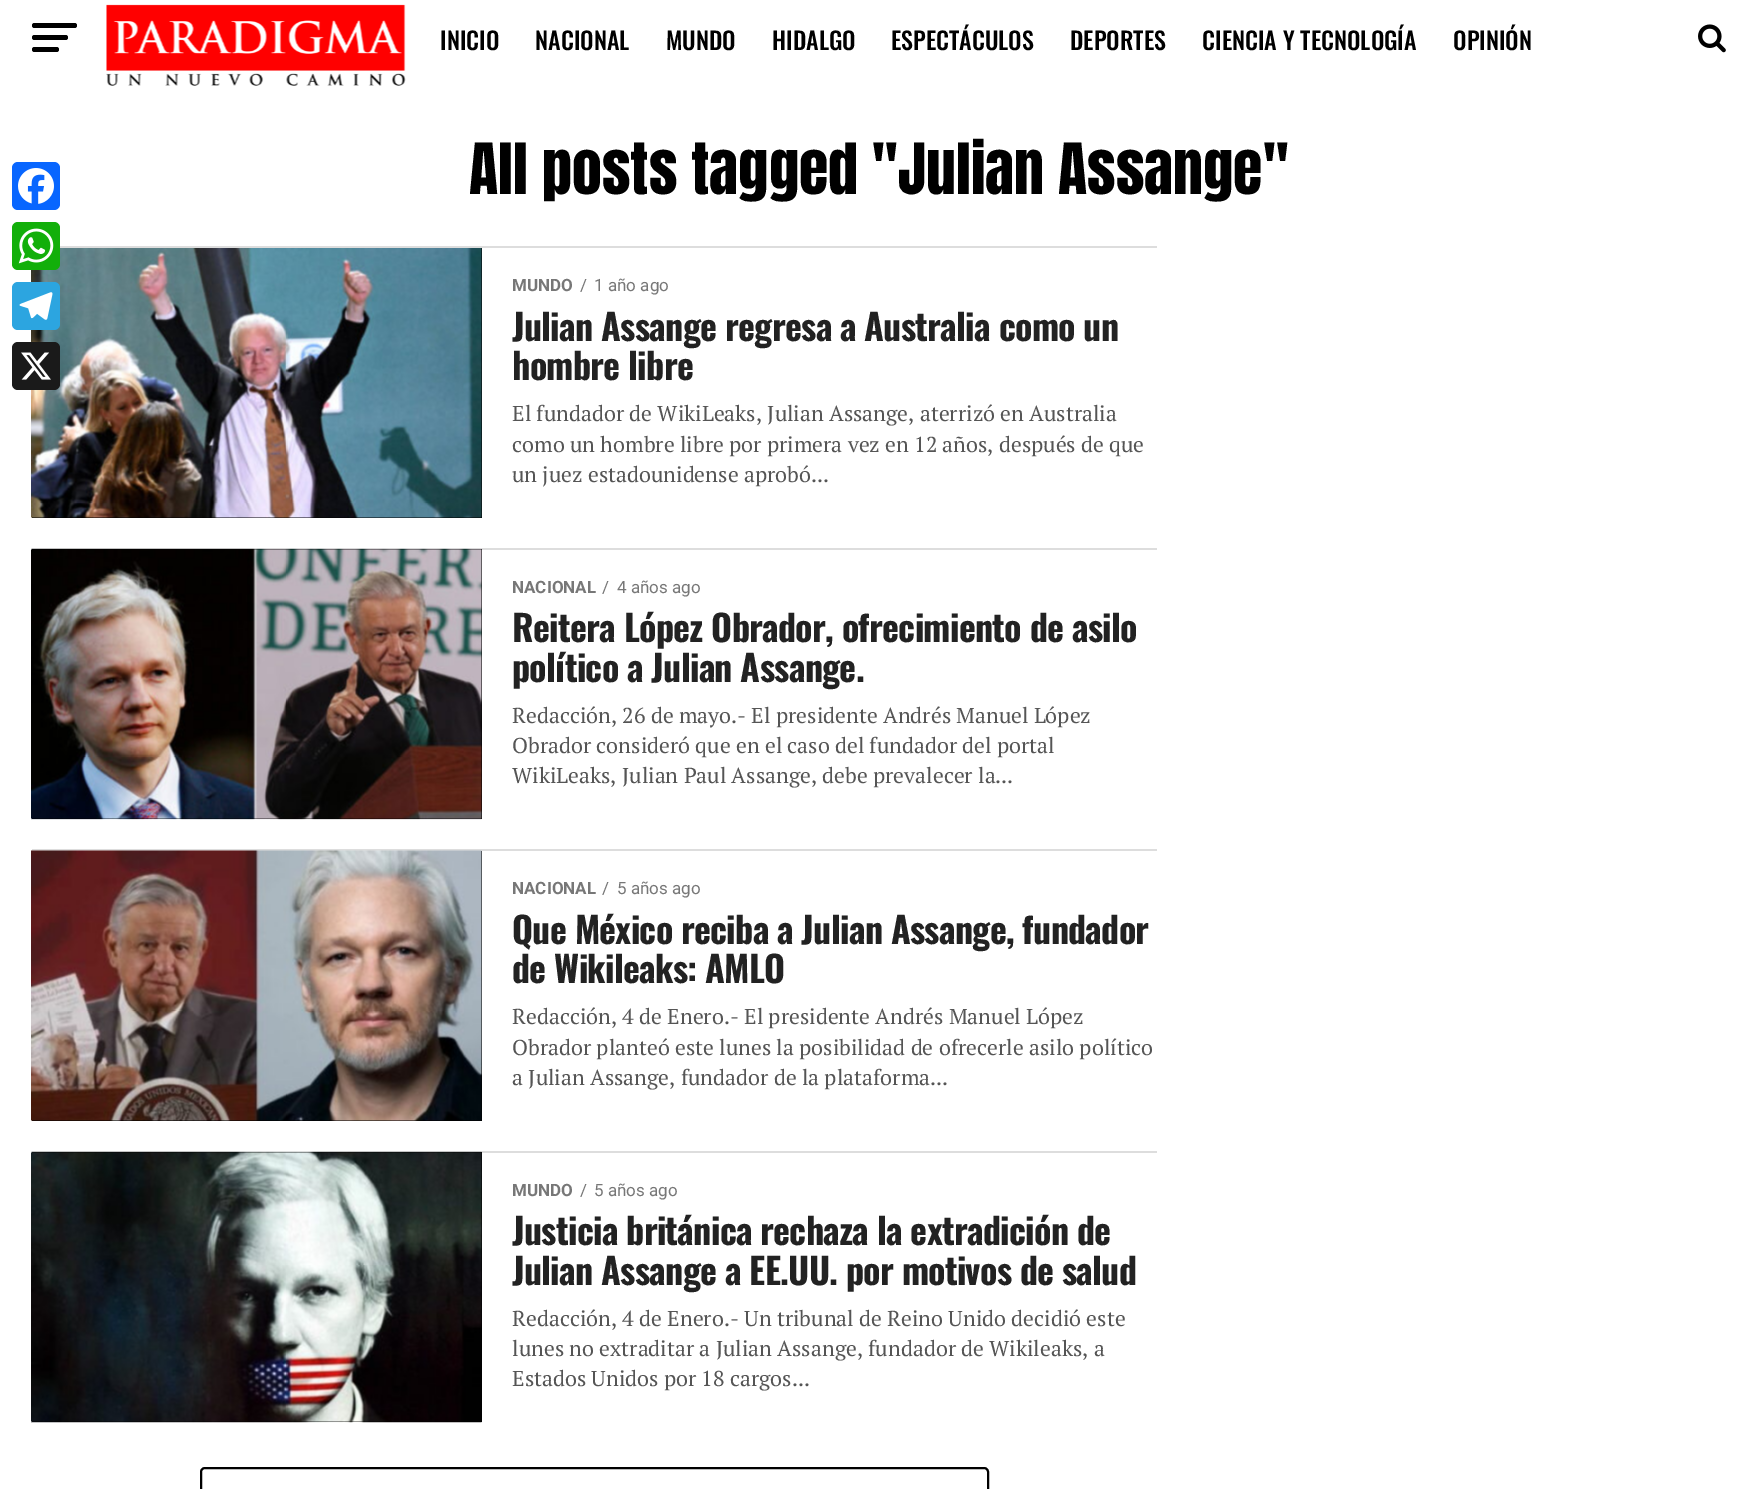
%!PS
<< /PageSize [1758 1489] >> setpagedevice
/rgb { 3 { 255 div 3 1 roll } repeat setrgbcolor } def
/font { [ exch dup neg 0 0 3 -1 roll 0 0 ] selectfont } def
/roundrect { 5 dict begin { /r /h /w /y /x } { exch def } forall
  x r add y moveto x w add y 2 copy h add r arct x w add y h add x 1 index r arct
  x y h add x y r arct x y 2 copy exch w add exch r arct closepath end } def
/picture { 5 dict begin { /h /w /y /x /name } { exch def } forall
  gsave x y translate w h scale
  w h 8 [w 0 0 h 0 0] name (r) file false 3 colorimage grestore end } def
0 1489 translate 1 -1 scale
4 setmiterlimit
255 255 255 rgb
0 0 1758 1489 rectfill
8 102 255 rgb
12 162 48 48 6 roundrect fill
(img/1.rgb) 18 168 36 36 picture
0 0 0 rgb
32 248 450 270 rectfill
(img/7.rgb) 31 248 451 270 picture
18 175 10 rgb
12 222 48 48 6 roundrect fill
(img/2.rgb) 18 228 36 36 picture
44 165 224 rgb
12 282 48 48 6 roundrect fill
(img/3.rgb) 19 292 34 28 picture
26 26 26 rgb
12 342 48 48 6 roundrect fill
(img/4.rgb) 21 352 30 28 picture
0 0 0 rgb
32 23 45 5 2.5 roundrect fill
32 35 36 5 2.5 roundrect fill
32 47 27 5 2.5 roundrect fill
(img/5.rgb) 106 4 300 82 picture
(img/6.rgb) 1698 24 28 29 picture
[
  [60 246 1097 2 221 221 221]
  [32 548 1125 2 221 221 221]
  [32 549 450 270 0 0 0]
] { aload pop rgb rectfill } forall
(img/8.rgb) 31 548 451 272 picture
221 221 221 rgb
32 849 1125 2 rectfill
0 0 0 rgb
32 851 450 270 rectfill
(img/9.rgb) 31 850 451 271 picture
221 221 221 rgb
32 1151 1125 2 rectfill
0 0 0 rgb
32 1152 450 270 rectfill
(img/10.rgb) 31 1151 451 272 picture
2 setlinewidth
201 1468 787 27 4 roundrect stroke
/Oswald-Medium 24 font
[
  [(INICIO) 440 50]
  [(NACIONAL) 535 50]
  [(MUNDO) 666 50]
  [(HIDALGO) 772 50]
  [(ESPECTÁCULOS) 891 50]
  [(DEPORTES) 1070 50]
  [(CIENCIA Y TECNOLOGÍA) 1202 50]
  [(OPINIÓN) 1453 50]
] { aload pop moveto show } forall
/Anton-Regular 60 font
469 194 moveto (All posts tagged "Julian Assange") show
/Roboto-Bold 17 font
119 119 119 rgb
512 291 moveto (MUNDO) show
/Roboto-Regular 17 font
580 291 moveto (/) show
594 291 moveto (1 año ago) show
/Oswald-Bold 36 font
34 34 34 rgb
512 341 moveto -0.7 0 (Julian Assange regresa a Australia como un) ashow
512 380 moveto -0.7 0 (hombre libre) ashow
/PTSerif-Regular 21.6 font
85 85 85 rgb
[
  [(El fundador de WikiLeaks, Julian Assange, aterrizó en Australia) 512 421]
  [(como un hombre libre por primera vez en 12 años, después de que) 512 452]
  [(un juez estadounidense aprobó...) 512 482]
] { aload pop moveto show } forall
/Roboto-Bold 17 font
119 119 119 rgb
512 593 moveto (NACIONAL) show
/Roboto-Regular 17 font
602 593 moveto (/) show
617 593 moveto (4 años ago) show
/Oswald-Bold 36 font
34 34 34 rgb
512 642 moveto -0.7 0 (Reitera López Obrador, ofrecimiento de asilo) ashow
512 682 moveto -0.7 0 (político a Julian Assange.) ashow
/PTSerif-Regular 21.6 font
85 85 85 rgb
[
  [(Redacción, 26 de mayo.- El presidente Andrés Manuel López) 512 723]
  [(Obrador consideró que en el caso del fundador del portal) 512 753]
  [(WikiLeaks, Julian Paul Assange, debe prevalecer la...) 512 783]
] { aload pop moveto show } forall
/Roboto-Bold 17 font
119 119 119 rgb
512 894 moveto (NACIONAL) show
/Roboto-Regular 17 font
602 894 moveto (/) show
617 894 moveto (5 años ago) show
/Oswald-Bold 36 font
34 34 34 rgb
512 944 moveto -0.7 0 (Que México reciba a Julian Assange, fundador) ashow
512 983 moveto -0.7 0 (de Wikileaks: AMLO) ashow
/PTSerif-Regular 21.6 font
85 85 85 rgb
[
  [(Redacción, 4 de Enero.- El presidente Andrés Manuel López) 512 1024]
  [(Obrador planteó este lunes la posibilidad de ofrecerle asilo político) 512 1055]
  [(a Julian Assange, fundador de la plataforma...) 512 1085]
] { aload pop moveto show } forall
/Roboto-Bold 17 font
119 119 119 rgb
512 1196 moveto (MUNDO) show
/Roboto-Regular 17 font
580 1196 moveto (/) show
594 1196 moveto (5 años ago) show
/Oswald-Bold 36 font
34 34 34 rgb
512 1245 moveto -0.7 0 (Justicia británica rechaza la extradición de) ashow
512 1285 moveto -0.7 0 (Julian Assange a EE.UU. por motivos de salud) ashow
/PTSerif-Regular 21.6 font
85 85 85 rgb
[
  [(Redacción, 4 de Enero.- Un tribunal de Reino Unido decidió este) 512 1326]
  [(lunes no extraditar a Julian Assange, fundador de Wikileaks, a) 512 1356]
  [(Estados Unidos por 18 cargos...) 512 1386]
] { aload pop moveto show } forall
showpage
